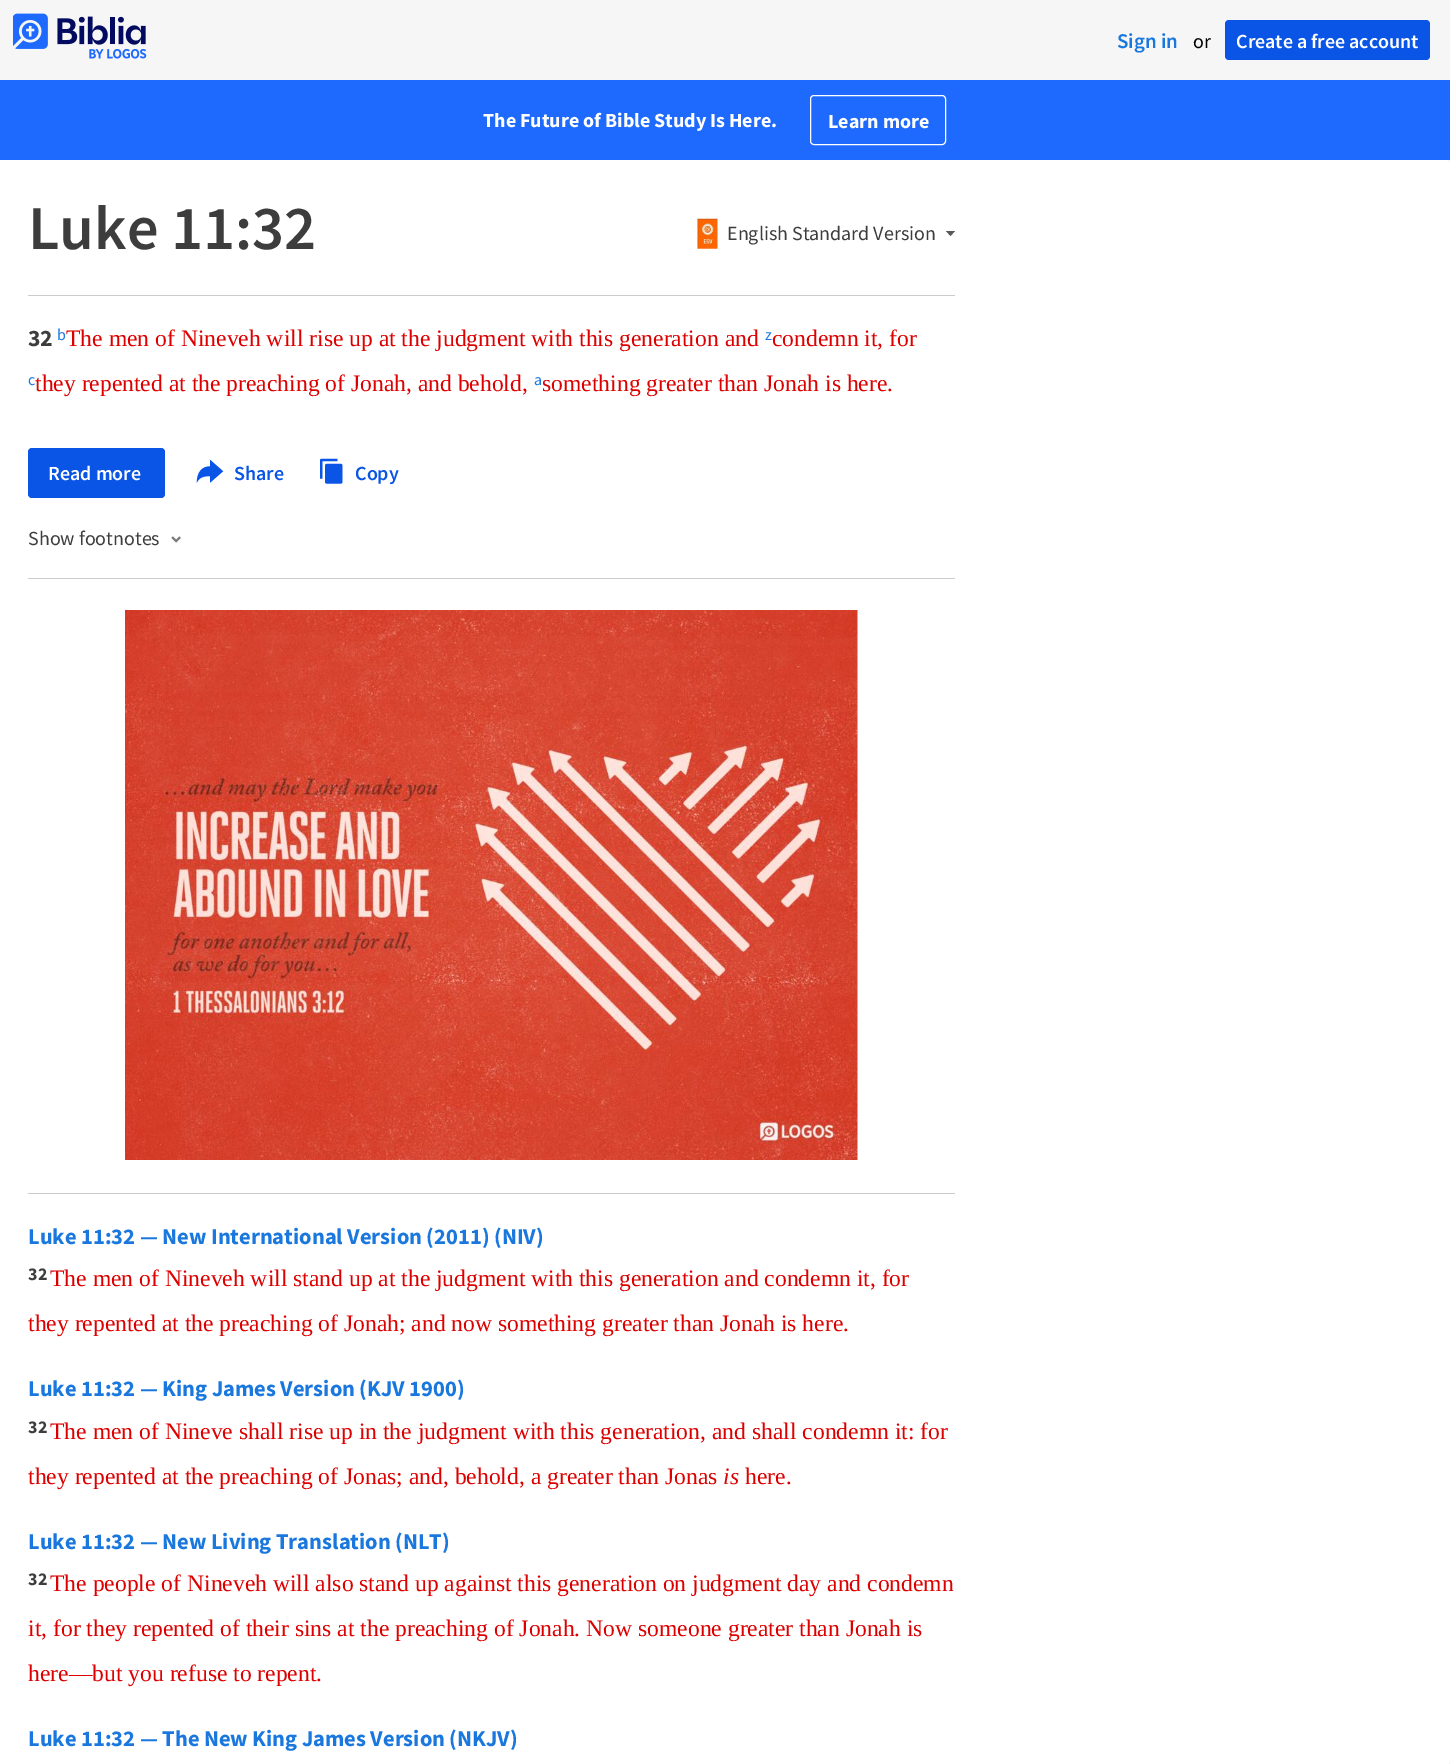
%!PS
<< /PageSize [1450 1764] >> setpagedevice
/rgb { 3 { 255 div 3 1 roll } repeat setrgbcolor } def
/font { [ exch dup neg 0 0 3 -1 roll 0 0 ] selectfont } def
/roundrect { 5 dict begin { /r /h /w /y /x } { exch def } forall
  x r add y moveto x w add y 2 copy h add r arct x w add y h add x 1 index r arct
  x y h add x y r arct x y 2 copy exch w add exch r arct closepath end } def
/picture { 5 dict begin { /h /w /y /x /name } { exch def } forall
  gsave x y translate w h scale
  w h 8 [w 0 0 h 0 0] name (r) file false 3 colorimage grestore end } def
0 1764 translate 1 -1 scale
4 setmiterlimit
246 246 246 rgb
0 0 1450 1764 rectfill
(img/1.rgb) 13 13 134 46 picture
10 85 230 rgb
1225 20 205 40 4 roundrect fill
30 106 254 rgb
0 80 1450 80 rectfill
255 255 255 rgb
810.5 95.5 135 49 3.5 roundrect stroke
-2 160 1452 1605 5 roundrect fill
204 204 204 rgb
28 295 927 1 rectfill
(img/2.rgb) 697 218 21 31 picture
88 88 88 rgb
950.5 236 moveto 955 231 lineto 946 231 lineto closepath eofill
10 85 230 rgb
28 448 137 50 4 roundrect fill
(img/3.rgb) 196 459 28 24 picture
(img/4.rgb) 320 458 23 26 picture
(img/5.rgb) 171 536 10 7 picture
204 204 204 rgb
28 578 927 1 rectfill
(img/6.rgb) 125 610 733 550 picture
28 1193 927 1 rectfill
/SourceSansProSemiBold-SemiBold 21 font
25 119 222 rgb
1117 48 moveto (Sign in) show
/SourceSansPro-Regular 20 font
0 0 0 rgb
1193 48 moveto (or) show
/SourceSansProSemiBold-SemiBold 20 font
255 255 255 rgb
1236 48 moveto (Create a free account) show
/SourceSansPro-Bold 20 font
483 127 moveto (The Future of Bible Study Is Here.) show
828 128 moveto (Learn more) show
/SourceSansProSemiBold-SemiBold 62.5 font
61 61 61 rgb
28 249 moveto (Luke 11:32) show
/SourceSansPro-Regular 20 font
727 240 moveto (English Standard Version) show
/SourceSansPro-Bold 23.6 font
28 346 moveto (32) show
/SourceSansPro-Regular 16 font
25 119 222 rgb
57 340 moveto (b) show
/LiberationSerif-Regular 23.6 font
221 0 0 rgb
66 346 moveto (The men of Nineveh will rise up at the judgment with this generation and) show
/SourceSansPro-Regular 16 font
25 119 222 rgb
765 340 moveto (z) show
/LiberationSerif-Regular 23.6 font
221 0 0 rgb
772 346 moveto (condemn it, for) show
/SourceSansPro-Regular 16 font
25 119 222 rgb
28 385 moveto (c) show
/LiberationSerif-Regular 23.6 font
221 0 0 rgb
35 391 moveto (they repented at the preaching of Jonah, and behold,) show
/SourceSansPro-Regular 16 font
25 119 222 rgb
534 385 moveto (a) show
/LiberationSerif-Regular 23.6 font
221 0 0 rgb
542 391 moveto (something greater than Jonah is here.) show
/SourceSansProSemiBold-SemiBold 20 font
255 255 255 rgb
48 480 moveto (Read more) show
10 85 230 rgb
234 480 moveto (Share) show
355 480 moveto (Copy) show
/SourceSansPro-Regular 20 font
61 61 61 rgb
28 545 moveto (Show footnotes) show
/SourceSansPro-Bold 22.5 font
25 119 222 rgb
28 1244 moveto (Luke 11:32 — New International Version \(2011\) \(NIV\)) show
/SourceSansPro-Bold 18 font
61 61 61 rgb
28 1280 moveto (32) show
/LiberationSerif-Regular 23.6 font
221 0 0 rgb
50 1286 moveto (The men of Nineveh will stand up at the judgment with this generation and condemn it, for) show
28 1331 moveto (they repented at the preaching of Jonah; and now something greater than Jonah is here.) show
/SourceSansPro-Bold 22.5 font
25 119 222 rgb
28 1396 moveto (Luke 11:32 — King James Version \(KJV 1900\)) show
/SourceSansPro-Bold 18 font
61 61 61 rgb
28 1433 moveto (32) show
/LiberationSerif-Regular 23.6 font
221 0 0 rgb
50 1439 moveto (The men of Nineve shall rise up in the judgment with this generation, and shall condemn it: for) show
28 1484 moveto (they repented at the preaching of Jonas; and, behold, a greater than Jonas) show
/LiberationSerif-Italic 23.6 font
723 1484 moveto (is) show
/LiberationSerif-Regular 23.6 font
745 1484 moveto (here.) show
/SourceSansPro-Bold 22.5 font
25 119 222 rgb
28 1549 moveto (Luke 11:32 — New Living Translation \(NLT\)) show
/SourceSansPro-Bold 18 font
61 61 61 rgb
28 1585 moveto (32) show
/LiberationSerif-Regular 23.6 font
221 0 0 rgb
[
  [(The people of Nineveh will also stand up against this generation on judgment day and condemn) 50 1591]
  [(it, for they repented of their sins at the preaching of Jonah. Now someone greater than Jonah is) 28 1636]
  [(here—but you refuse to repent.) 28 1681]
] { aload pop moveto show } forall
/SourceSansPro-Bold 22.5 font
25 119 222 rgb
28 1746 moveto (Luke 11:32 — The New King James Version \(NKJV\)) show
showpage
